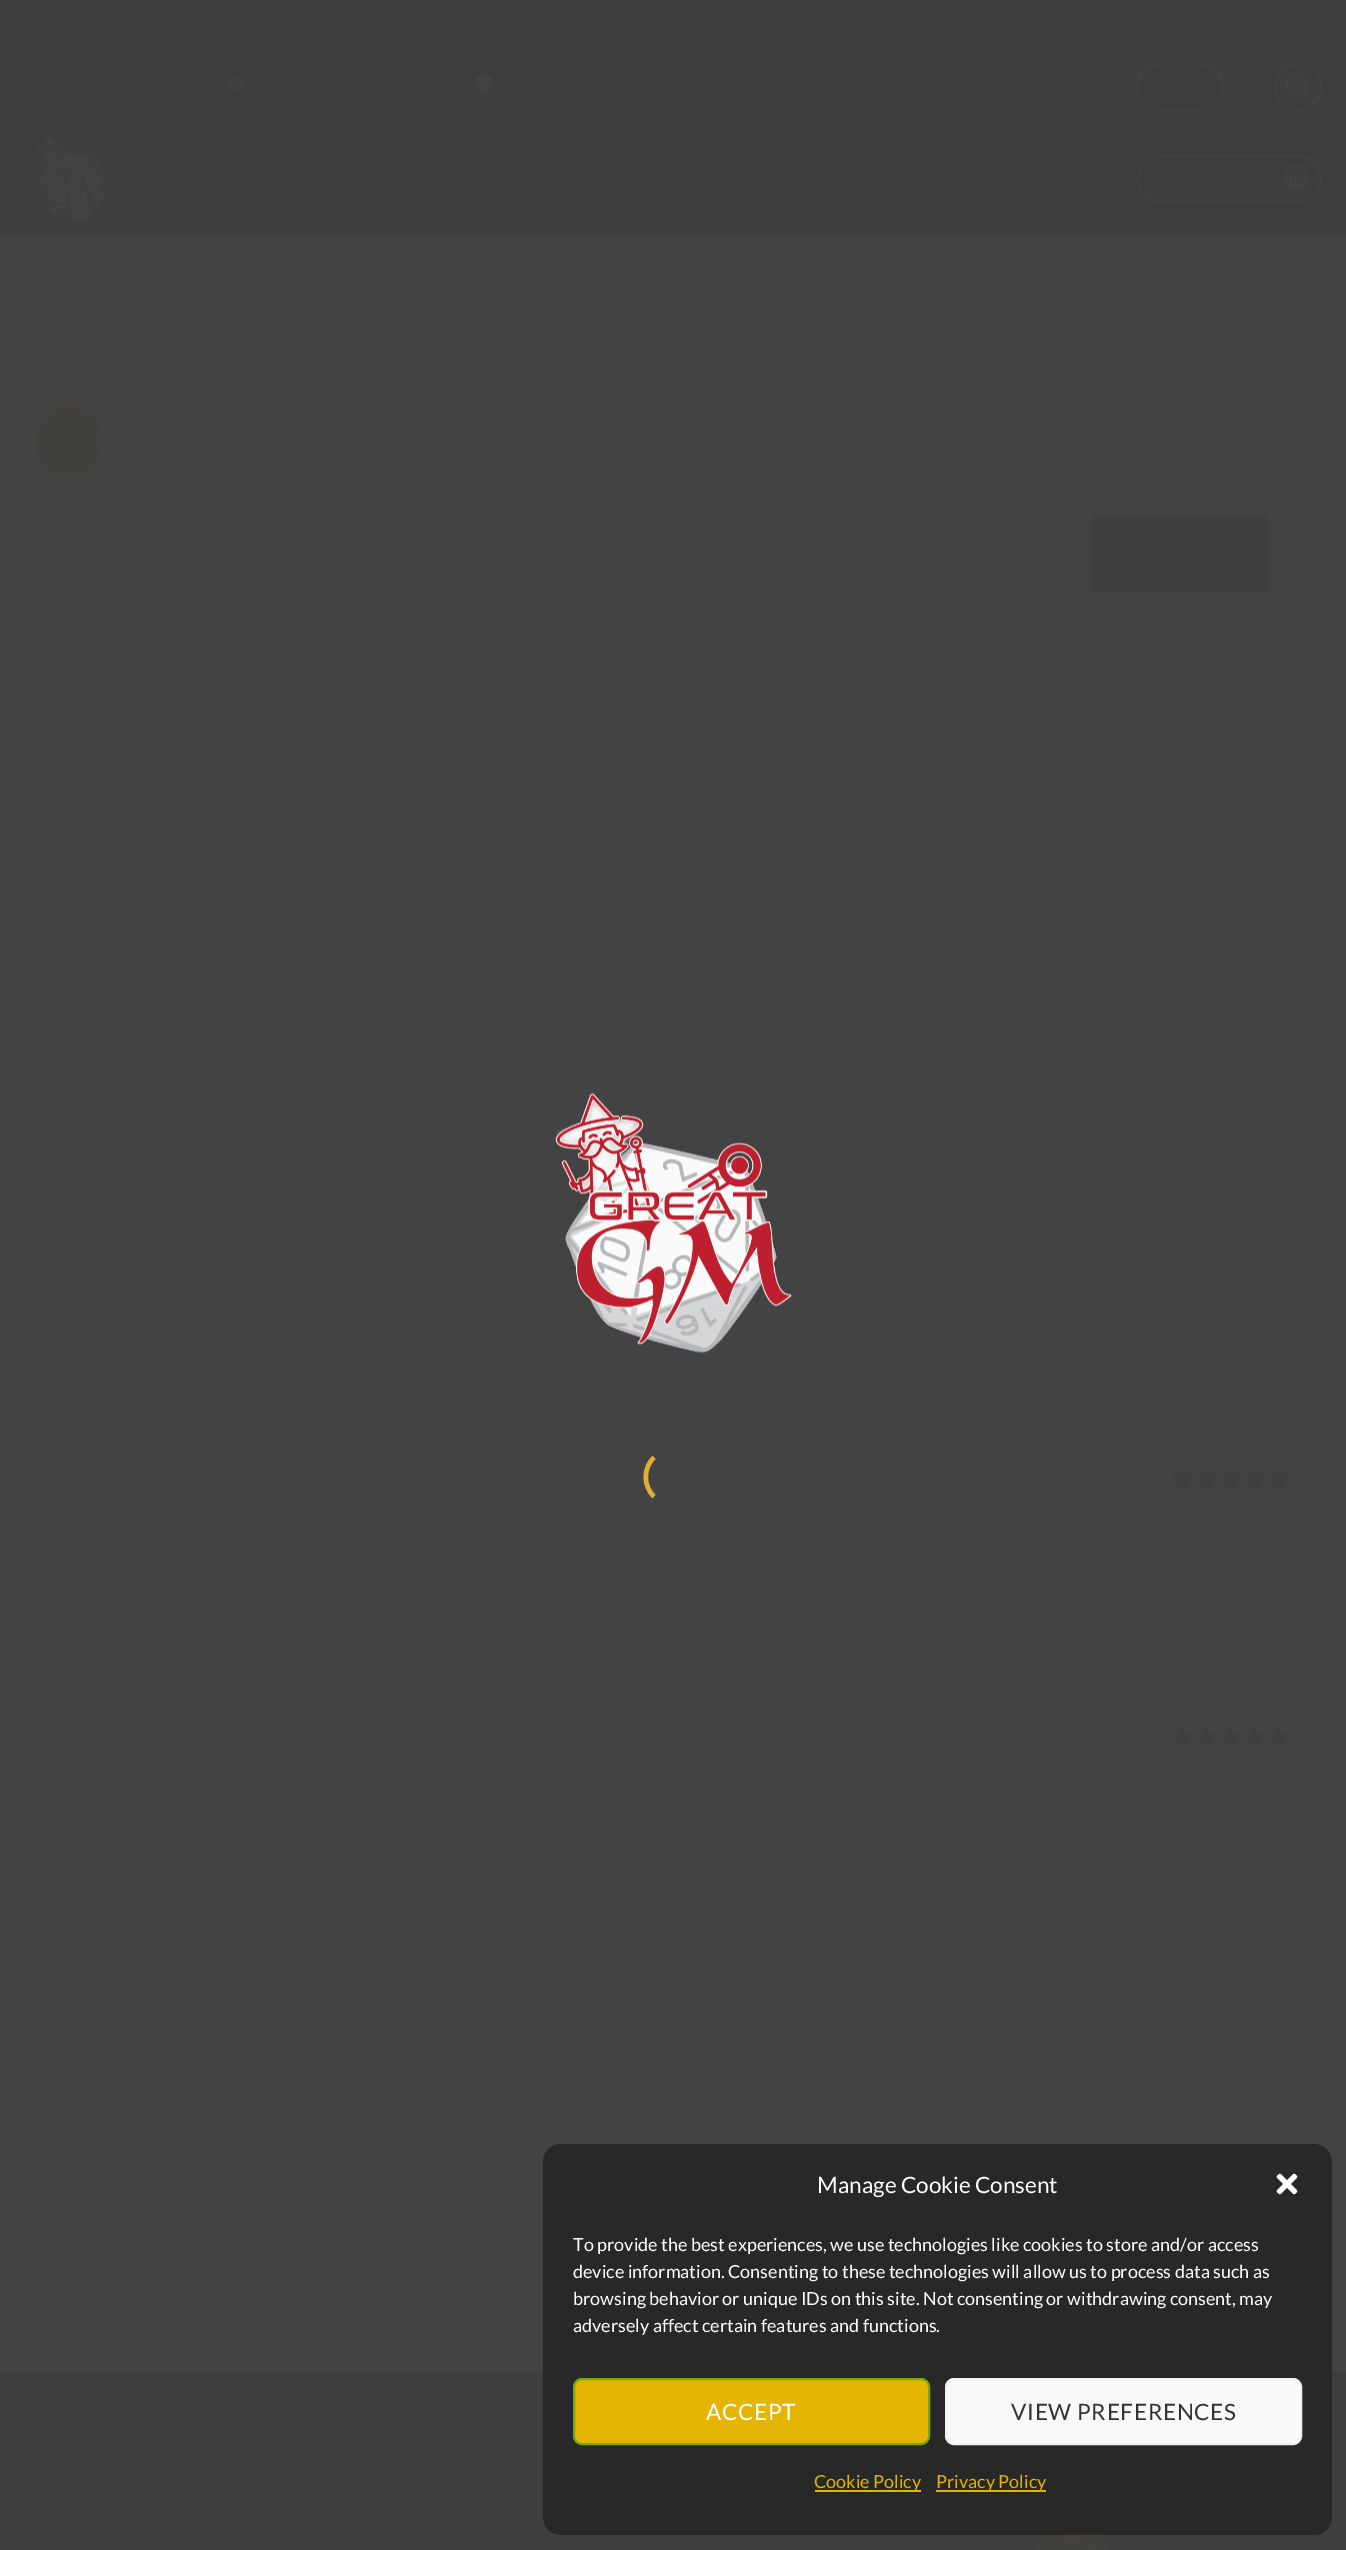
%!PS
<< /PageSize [1346 2550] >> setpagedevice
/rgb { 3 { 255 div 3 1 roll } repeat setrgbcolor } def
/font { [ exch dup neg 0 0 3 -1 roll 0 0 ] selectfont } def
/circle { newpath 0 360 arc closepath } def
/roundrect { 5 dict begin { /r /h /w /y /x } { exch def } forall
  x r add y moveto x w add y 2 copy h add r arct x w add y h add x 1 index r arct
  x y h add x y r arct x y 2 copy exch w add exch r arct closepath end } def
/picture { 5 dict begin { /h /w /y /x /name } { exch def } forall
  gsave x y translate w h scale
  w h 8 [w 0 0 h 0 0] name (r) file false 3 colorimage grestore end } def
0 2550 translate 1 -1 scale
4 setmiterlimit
62 62 62 rgb
0 0 1346 2550 rectfill
67 67 67 rgb
0 237 1346 2135 rectfill
(img/1.rgb) 228 77 18 14 picture
(img/2.rgb) 475 76 18 16 picture
66 66 66 rgb
2 setlinewidth
1137 64 86 46 23 roundrect stroke
1298 87 23 circle stroke
(img/3.rgb) 1285 73 25 25 picture
(img/4.rgb) 35 136 79 85 picture
(img/5.rgb) 562 149 14 9 picture
(img/6.rgb) 890 149 14 9 picture
(img/5.rgb) 583 218 14 9 picture
(img/6.rgb) 764 218 14 9 picture
1138 156 183 46 23 roundrect stroke
(img/7.rgb) 1282 164 27 24 picture
66 65 62 rgb
36 408 66 68 33 roundrect fill
63 63 63 rgb
1092 516 176 77 rectfill
(img/8.rgb) 1170 1466 120 23 picture
(img/9.rgb) 1170 1466 120 23 picture
(img/10.rgb) 1170 1725 120 24 picture
(img/11.rgb) 1170 1725 120 24 picture
(img/12.rgb) 555 1093 237 260 picture
223 173 58 rgb
4.5 setlinewidth
654 1496.5 moveto 643 1486 643 1468 654 1457.5 curveto stroke
(img/13.rgb) 1034 2535 75 15 picture
40 40 40 rgb
543 2144 789 391 18 roundrect fill
(img/14.rgb) 1276 2173 22 22 picture
229 181 6 rgb
574 2379 355 65 8 roundrect gsave fill grestore
118 170 5 rgb
2 setlinewidth
stroke
249 249 249 rgb
946 2379 355 65 8 roundrect gsave fill grestore
242 242 242 rgb
stroke
226 181 0 rgb
815 2490 106 2 rectfill
936 2490 110 2 rectfill
/Lato-Regular 22.5 font
255 255 255 rgb
817 2193 moveto (Manage Cookie Consent) show
/Lato-Regular 18 font
[
  [(To provide the best experiences, we use technologies like cookies to store and/or access) 573 2251]
  [(device information. Consenting to these technologies will allow us to process data such as) 573 2278]
  [(browsing behavior or unique IDs on this site. Not consenting or withdrawing consent, may) 573 2305]
  [(adversely affect certain features and functions.) 573 2332]
] { aload pop moveto show } forall
/Lato-Regular 22.5 font
706 2420 moveto 0.7 0 (ACCEPT) ashow
51 51 51 rgb
1011 2420 moveto 0.7 0 (VIEW PREFERENCES) ashow
/Lato-Regular 18 font
226 181 0 rgb
814 2488 moveto (Cookie Policy) show
936 2488 moveto (Privacy Policy) show
showpage
